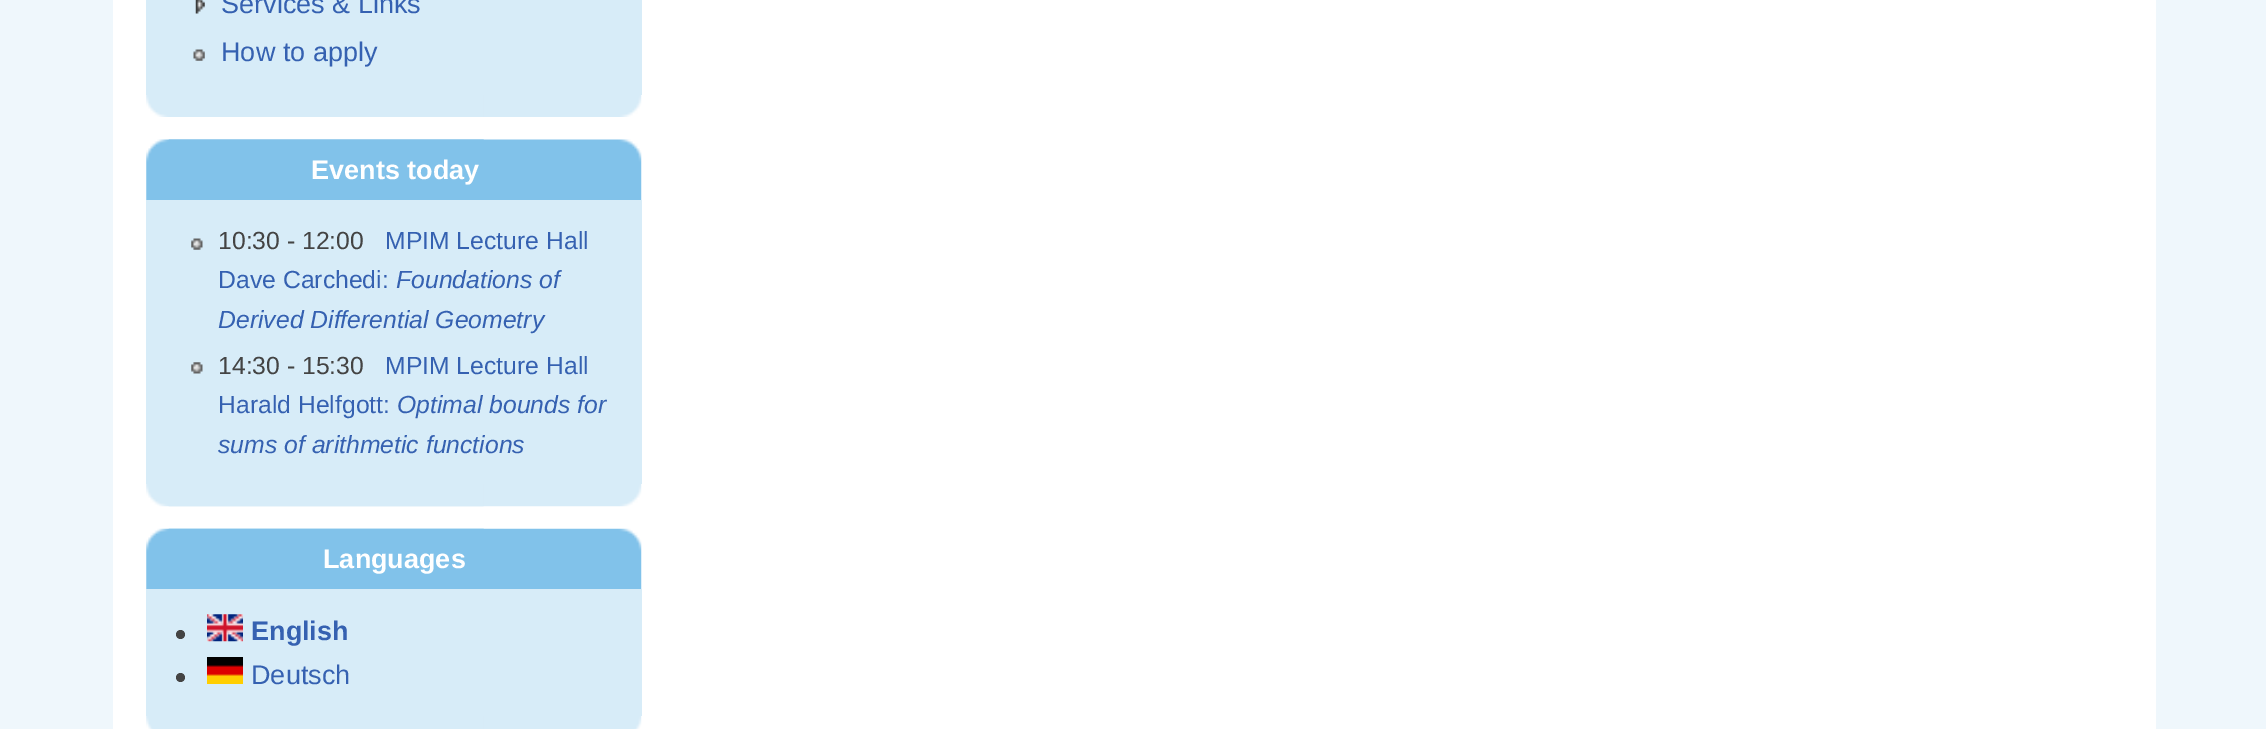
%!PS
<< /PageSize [2266 729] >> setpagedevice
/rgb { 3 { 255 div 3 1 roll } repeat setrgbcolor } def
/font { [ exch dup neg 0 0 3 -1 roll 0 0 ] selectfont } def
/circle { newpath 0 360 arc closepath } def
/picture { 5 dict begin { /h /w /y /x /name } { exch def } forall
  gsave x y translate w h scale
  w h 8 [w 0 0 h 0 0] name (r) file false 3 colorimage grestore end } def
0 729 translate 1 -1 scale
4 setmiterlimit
239 247 252 rgb
0 0 2266 729 rectfill
255 255 255 rgb
113 0 2043 729 rectfill
(img/1.rgb) 483 95 159 22 picture
(img/2.rgb) 146 95 338 22 picture
215 236 248 rgb
146 0 496 95 rectfill
(img/3.rgb) 195 0 10 14 picture
(img/4.rgb) 193 49 12 12 picture
(img/5.rgb) 168 139 474 61 picture
(img/6.rgb) 168 484 474 23 picture
(img/7.rgb) 146 139 338 61 picture
(img/8.rgb) 146 484 338 23 picture
146 200 496 284 rectfill
(img/9.rgb) 191 238 12 12 picture
(img/10.rgb) 191 362 12 12 picture
(img/11.rgb) 168 528 474 61 picture
(img/12.rgb) 483 716 159 13 picture
(img/13.rgb) 146 528 338 61 picture
(img/14.rgb) 146 716 338 13 picture
146 589 496 127 rectfill
68 68 68 rgb
180.5 634.5 4.5 circle fill
(img/15.rgb) 207 614 36 28 picture
180.5 677.5 4.5 circle fill
(img/16.rgb) 207 657 36 27 picture
/LiberationSans-Regular 27 font
53 97 177 rgb
221 13 moveto (Services & Links) show
221 61 moveto (How to apply) show
/LiberationSans-Bold 27 font
255 255 255 rgb
311 179 moveto (Events today) show
/LiberationSans-Regular 24.75 font
68 68 68 rgb
218 249 moveto (10:30 - 12:00) show
53 97 177 rgb
385 249 moveto (MPIM Lecture Hall) show
218 288 moveto (Dave Carchedi:) show
/LiberationSans-Italic 24.75 font
396 288 moveto (Foundations of) show
218 328 moveto (Derived Differential Geometry) show
/LiberationSans-Regular 24.75 font
68 68 68 rgb
218 374 moveto (14:30 - 15:30) show
53 97 177 rgb
385 374 moveto (MPIM Lecture Hall) show
218 413 moveto (Harald Helfgott:) show
/LiberationSans-Italic 24.75 font
397 413 moveto (Optimal bounds for) show
218 453 moveto (sums of arithmetic functions) show
/LiberationSans-Bold 27 font
255 255 255 rgb
323 568 moveto (Languages) show
53 97 177 rgb
251 640 moveto (English) show
/LiberationSans-Regular 27 font
251 684 moveto (Deutsch) show
showpage
